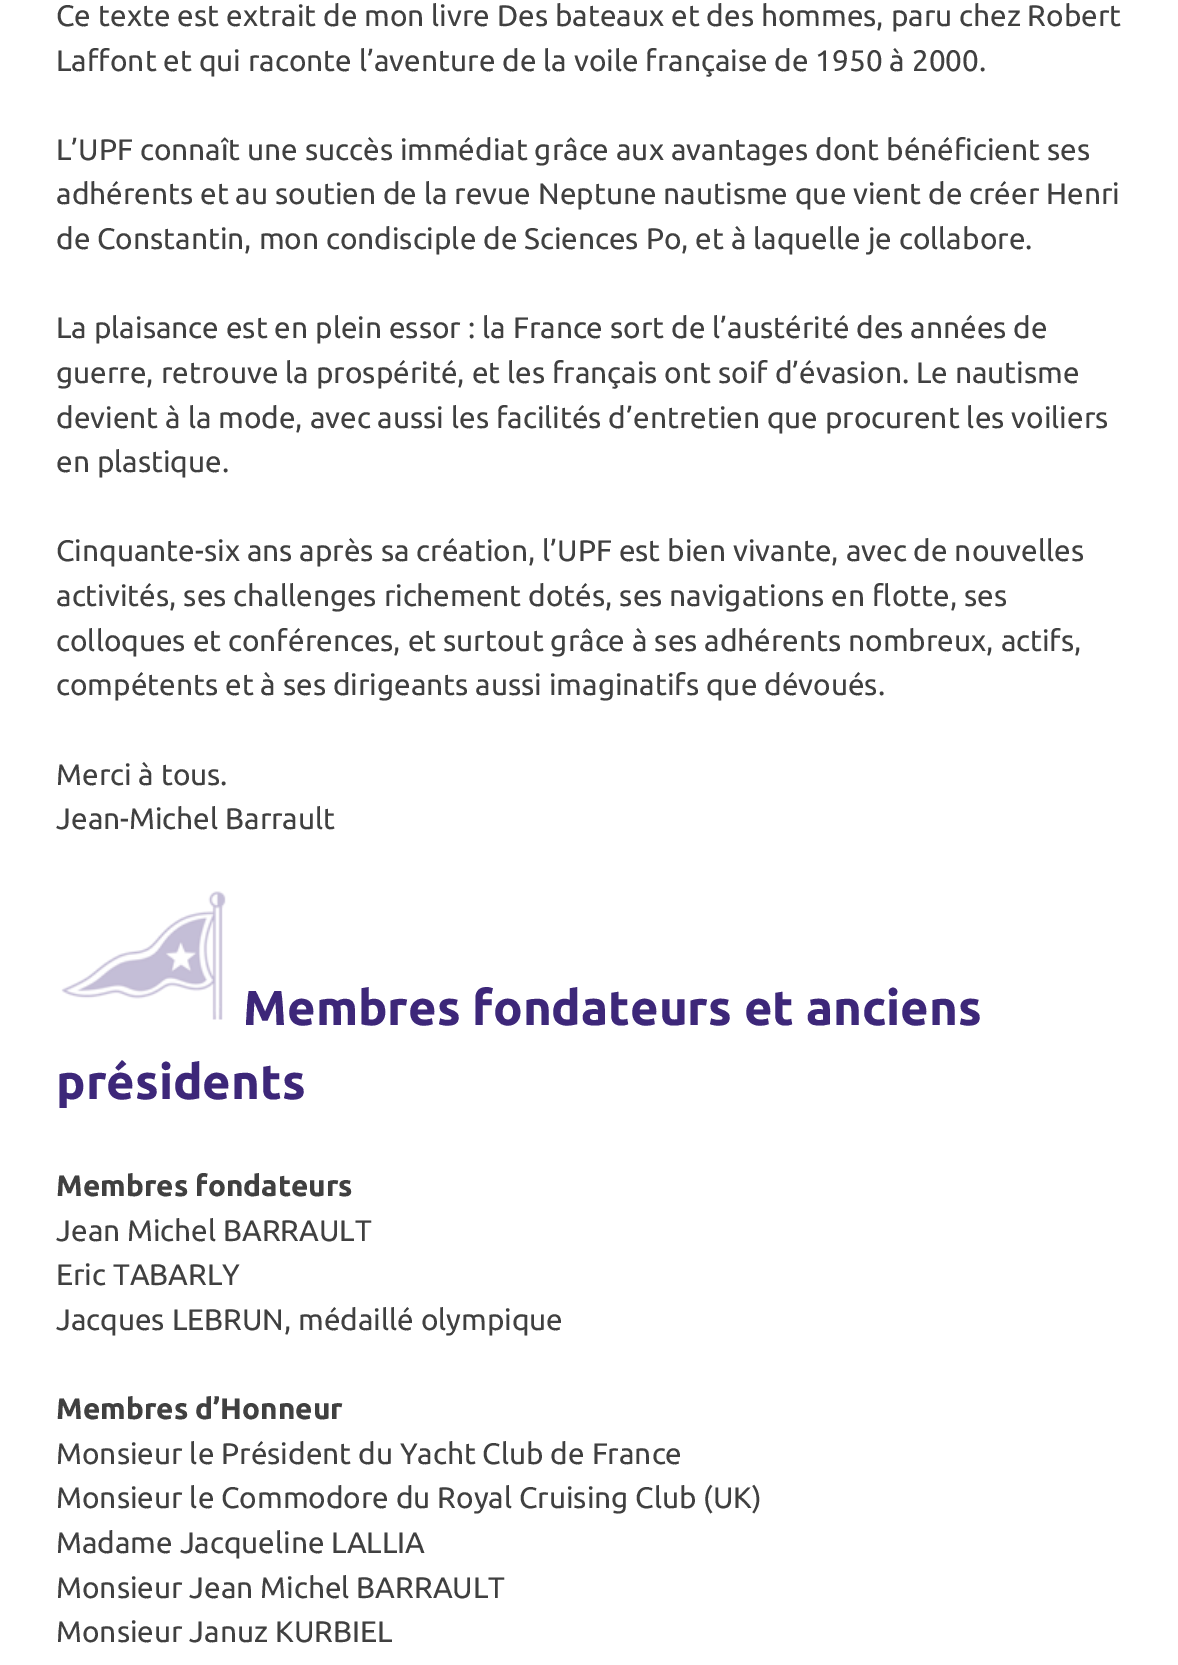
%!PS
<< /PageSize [1178 1665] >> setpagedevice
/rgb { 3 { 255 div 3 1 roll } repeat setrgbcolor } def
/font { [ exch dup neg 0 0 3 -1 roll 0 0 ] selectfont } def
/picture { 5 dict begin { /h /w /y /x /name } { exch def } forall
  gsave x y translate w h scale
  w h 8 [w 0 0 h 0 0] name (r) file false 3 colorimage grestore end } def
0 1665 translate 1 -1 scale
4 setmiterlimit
255 255 255 rgb
0 0 1178 1665 rectfill
(img/1.rgb) 61 891 165 129 picture
/Ubuntu-Regular 29.75 font
64 64 64 rgb
[
  [(Ce texte est extrait de mon livre Des bateaux et des hommes, paru chez Robert) 56 26]
  [(Laffont et qui raconte l’aventure de la voile française de 1950 à 2000.) 56 71]
  [(L’UPF connaît une succès immédiat grâce aux avantages dont bénéficient ses) 56 160]
  [(adhérents et au soutien de la revue Neptune nautisme que vient de créer Henri) 56 204]
  [(de Constantin, mon condisciple de Sciences Po, et à laquelle je collabore.) 56 249]
  [(La plaisance est en plein essor : la France sort de l’austérité des années de) 56 338]
  [(guerre, retrouve la prospérité, et les français ont soif d’évasion. Le nautisme) 56 383]
  [(devient à la mode, avec aussi les facilités d’entretien que procurent les voiliers) 56 428]
  [(en plastique.) 56 472]
  [(Cinquante-six ans après sa création, l’UPF est bien vivante, avec de nouvelles) 56 561]
  [(activités, ses challenges richement dotés, ses navigations en flotte, ses) 56 606]
  [(colloques et conférences, et surtout grâce à ses adhérents nombreux, actifs,) 56 651]
  [(compétents et à ses dirigeants aussi imaginatifs que dévoués.) 56 695]
  [(Merci à tous.) 56 785]
  [(Jean-Michel Barrault) 56 829]
] { aload pop moveto show } forall
/Ubuntu-Bold 49 font
61 39 121 rgb
243 1025 moveto (Membres fondateurs et anciens) show
56 1099 moveto (présidents) show
/Ubuntu-Bold 29.75 font
64 64 64 rgb
56 1196 moveto (Membres fondateurs) show
/Ubuntu-Regular 29.75 font
[
  [(Jean Michel BARRAULT) 56 1241]
  [(Eric TABARLY) 56 1285]
  [(Jacques LEBRUN, médaillé olympique) 56 1330]
] { aload pop moveto show } forall
/Ubuntu-Bold 29.75 font
56 1419 moveto (Membres d’Honneur) show
/Ubuntu-Regular 29.75 font
[
  [(Monsieur le Président du Yacht Club de France) 56 1464]
  [(Monsieur le Commodore du Royal Cruising Club \(UK\)) 56 1508]
  [(Madame Jacqueline LALLIA) 56 1553]
  [(Monsieur Jean Michel BARRAULT) 56 1598]
  [(Monsieur Januz KURBIEL) 56 1642]
] { aload pop moveto show } forall
showpage
